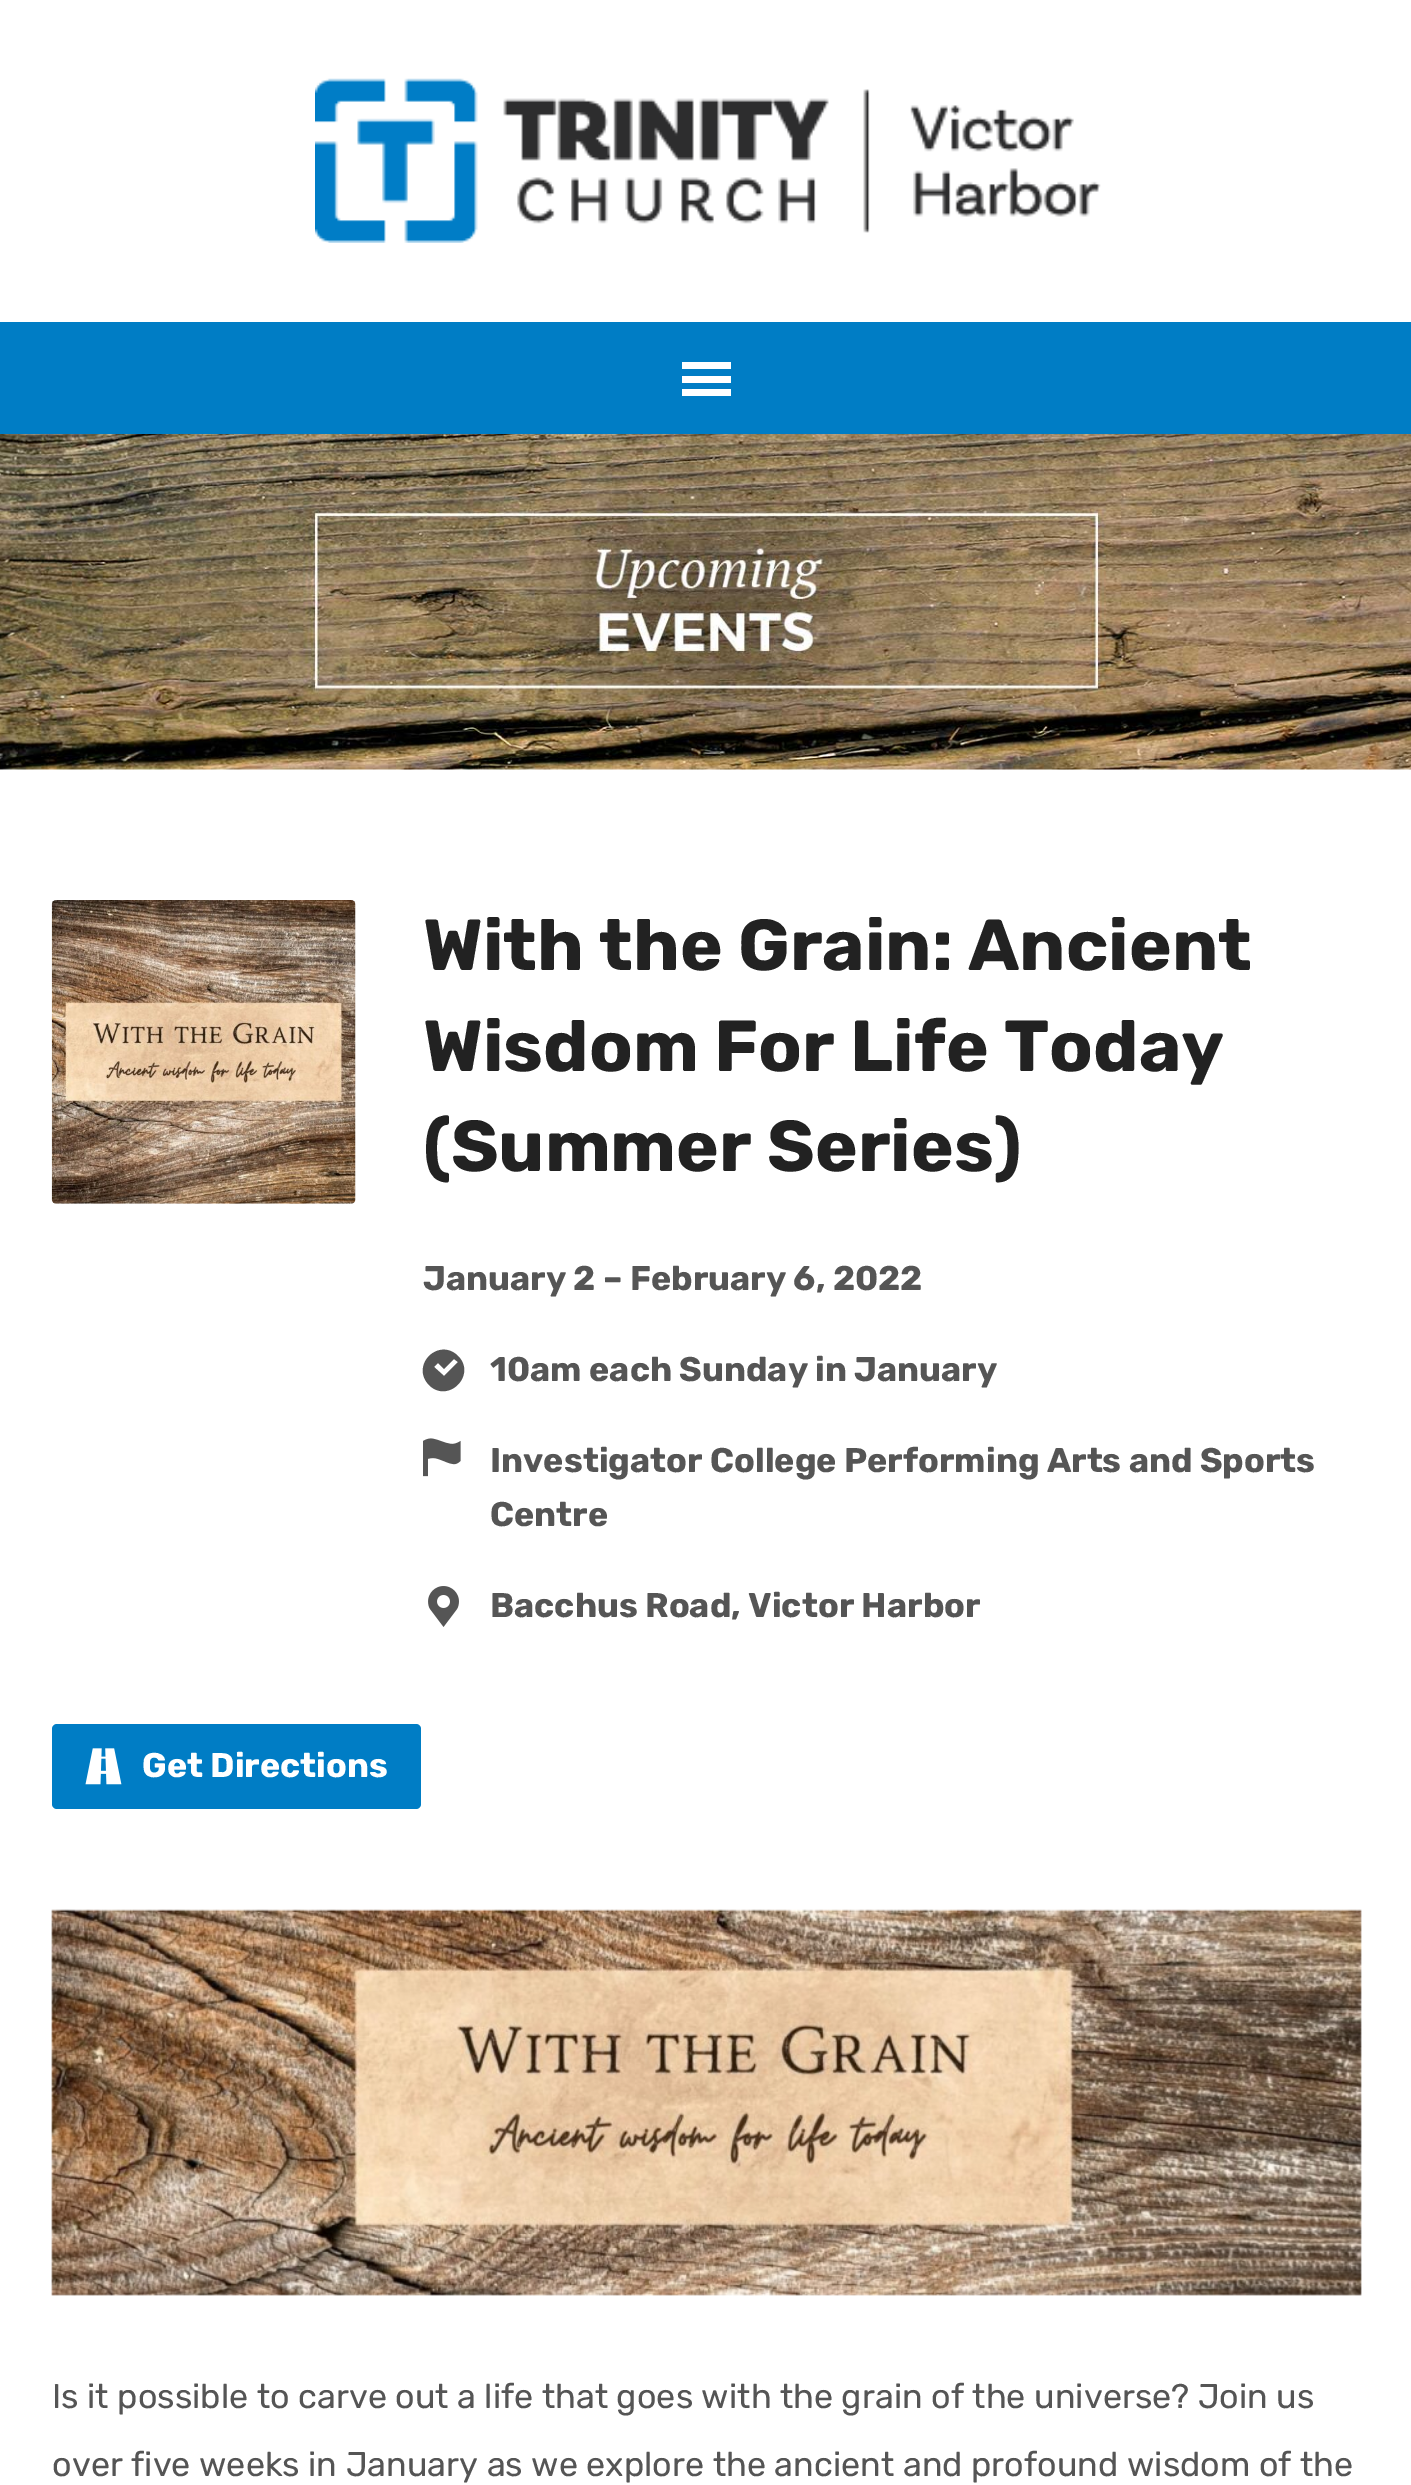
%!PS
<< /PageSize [1411 2485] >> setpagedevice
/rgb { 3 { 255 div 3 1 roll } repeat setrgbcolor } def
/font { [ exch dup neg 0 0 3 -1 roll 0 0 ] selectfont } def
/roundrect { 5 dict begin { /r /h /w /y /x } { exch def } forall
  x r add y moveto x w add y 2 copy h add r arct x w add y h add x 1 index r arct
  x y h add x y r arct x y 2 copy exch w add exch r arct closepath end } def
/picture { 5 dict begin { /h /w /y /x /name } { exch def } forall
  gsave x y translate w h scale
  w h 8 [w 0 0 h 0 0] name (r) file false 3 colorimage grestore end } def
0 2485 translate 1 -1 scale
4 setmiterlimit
255 255 255 rgb
0 0 1411 2485 rectfill
(img/1.rgb) 315 78 786 165 picture
[
  [0 322 1411 112 0 125 197]
  [682 362 49 7 255 255 255]
  [682 376 49 7 255 255 255]
  [682 389 49 7 255 255 255]
] { aload pop rgb rectfill } forall
(img/2.rgb) 0 434 1411 336 picture
(img/3.rgb) 51 900 305 304 picture
85 85 85 rgb
458 1356 moveto 439 1337 410 1365 429 1385 curveto 448 1404 477 1375 458 1356 curveto closepath 454 1359 moveto 458 1362 lineto 444 1376 lineto 434 1367 lineto 438 1363 lineto 444 1369 lineto closepath fill
(img/4.rgb) 423 1438 38 39 picture
(img/5.rgb) 428 1586 31 41 picture
0 125 197 rgb
52 1724 369 85 5 roundrect fill
(img/6.rgb) 85 1748 37 37 picture
(img/7.rgb) 51 1909 1311 387 picture
/Rubik-Bold 72 font
34 34 34 rgb
[
  [(With the Grain: Ancient) 423 970]
  [(Wisdom For Life Today) 423 1071]
  [(\(Summer Series\)) 423 1171]
] { aload pop moveto show } forall
/Rubik-Bold 34.2 font
85 85 85 rgb
[
  [(January 2 – February 6, 2022) 423 1290]
  [(10am each Sunday in January) 490 1381]
  [(Investigator College Performing Arts and Sports) 490 1472]
  [(Centre) 490 1526]
  [(Bacchus Road, Victor Harbor) 490 1617]
] { aload pop moveto show } forall
255 255 255 rgb
142 1777 moveto (Get Directions) show
/Rubik-Regular 34.2 font
85 85 85 rgb
52 2408 moveto (Is it possible to carve out a life that goes with the grain of the universe? Join us) show
52 2476 moveto (over five weeks in January as we explore the ancient and profound wisdom of the) show
showpage
